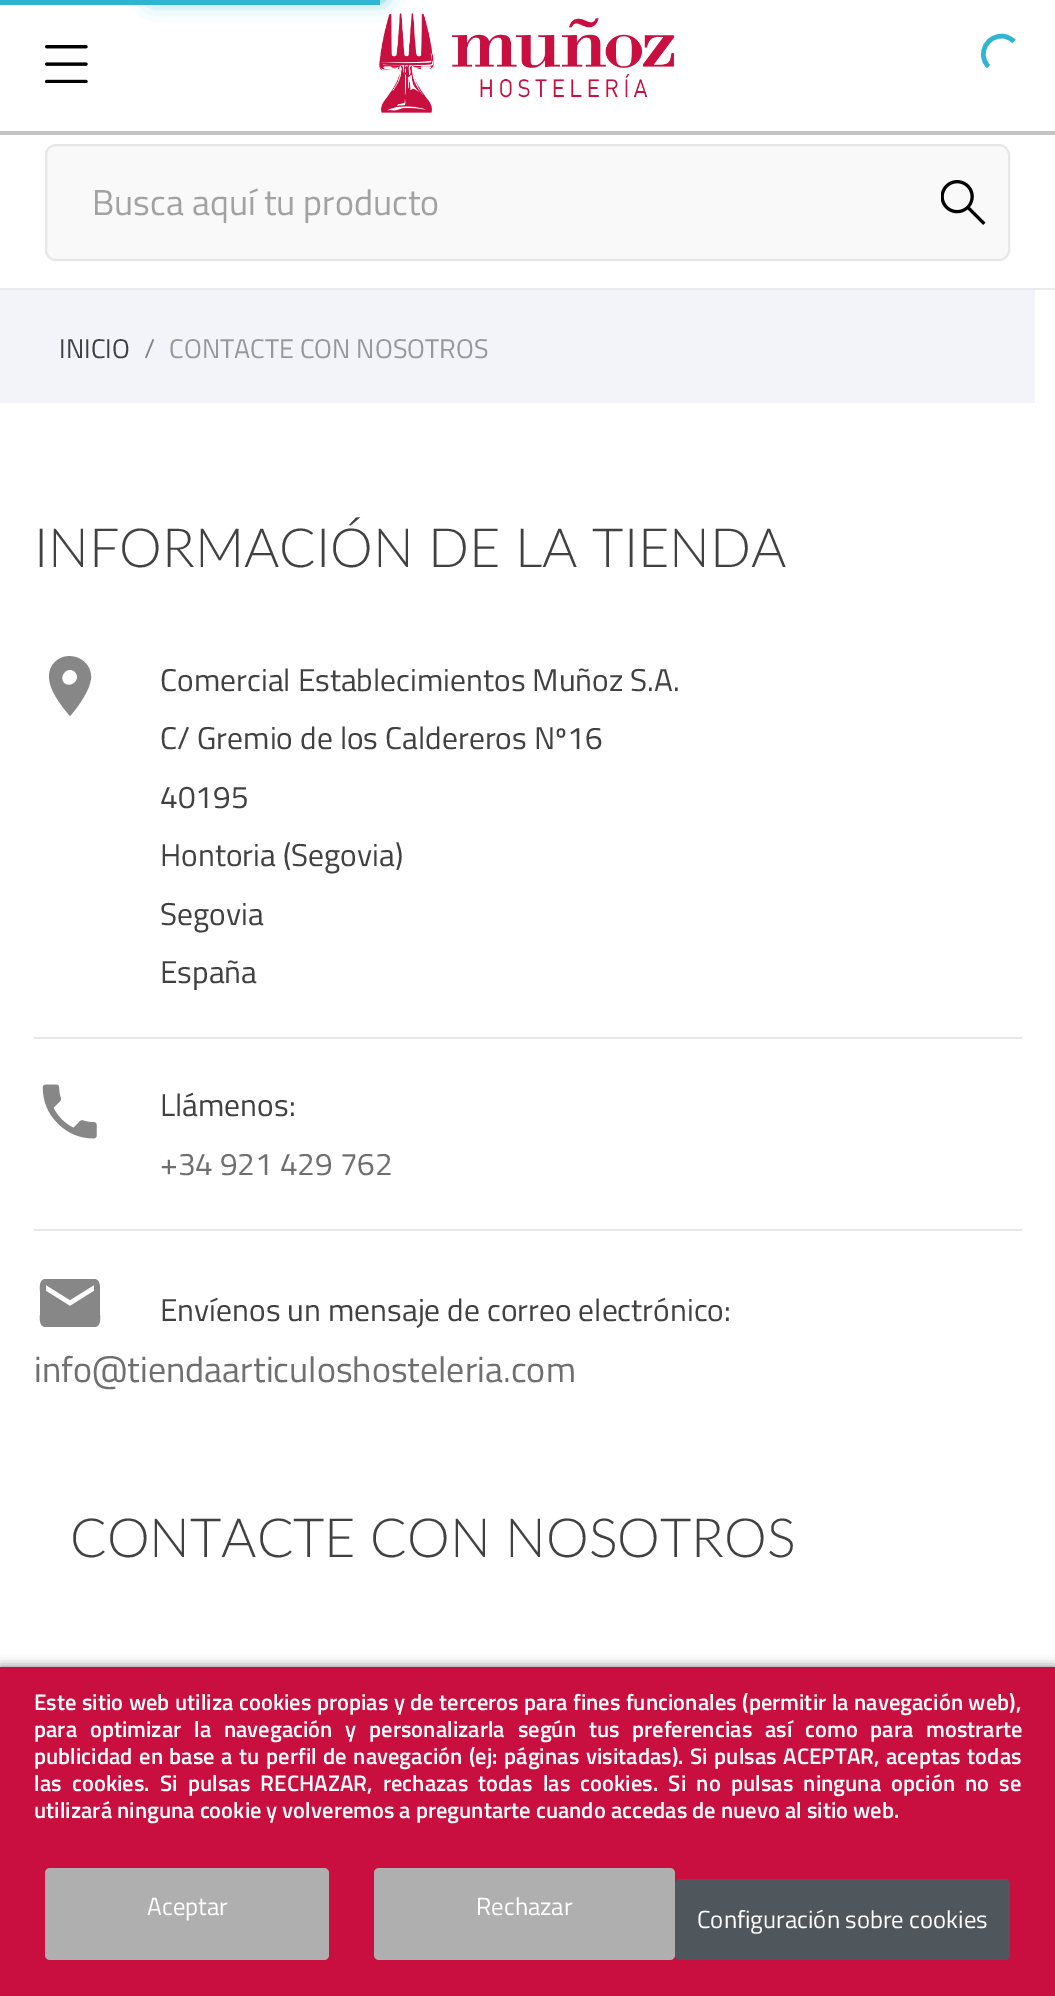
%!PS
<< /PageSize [1055 1996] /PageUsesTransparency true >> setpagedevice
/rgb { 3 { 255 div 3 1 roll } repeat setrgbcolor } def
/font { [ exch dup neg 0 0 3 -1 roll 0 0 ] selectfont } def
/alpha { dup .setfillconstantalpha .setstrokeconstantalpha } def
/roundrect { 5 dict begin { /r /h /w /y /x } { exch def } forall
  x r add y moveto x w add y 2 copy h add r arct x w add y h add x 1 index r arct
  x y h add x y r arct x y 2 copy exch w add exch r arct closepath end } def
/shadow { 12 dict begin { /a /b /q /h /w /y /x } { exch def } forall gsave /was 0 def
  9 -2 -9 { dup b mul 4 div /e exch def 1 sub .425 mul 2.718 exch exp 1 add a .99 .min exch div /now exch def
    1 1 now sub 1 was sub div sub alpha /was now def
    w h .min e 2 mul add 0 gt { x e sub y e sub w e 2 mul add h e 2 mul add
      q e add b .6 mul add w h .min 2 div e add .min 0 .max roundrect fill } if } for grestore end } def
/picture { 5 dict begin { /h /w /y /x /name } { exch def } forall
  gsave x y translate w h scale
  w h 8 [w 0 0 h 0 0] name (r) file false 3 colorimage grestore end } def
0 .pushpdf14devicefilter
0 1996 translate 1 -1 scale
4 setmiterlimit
255 255 255 rgb
0 0 1055 1996 rectfill
47 181 210 rgb
0 0 380 5 rectfill
(img/2.rgb) 379 13 295 100 picture
gsave
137 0 moveto 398 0 lineto 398 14 lineto 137 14 lineto closepath 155.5 -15 moveto 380.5 -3 lineto 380 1.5 lineto 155.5 -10.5 lineto closepath eoclip newpath
155 -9 225 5 0 5.5 1 shadow
grestore
gsave
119 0 moveto 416 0 lineto 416 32 lineto 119 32 lineto closepath 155.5 -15 moveto 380.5 -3 lineto 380 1.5 lineto 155.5 -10.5 lineto closepath eoclip newpath
155 -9 225 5 0 11.5 1 shadow
grestore
4.5 setlinewidth
988.5 66.5 moveto 976 54.5 987.5 33 1005 36.5 curveto 1008 37 1011.5 39 1014 41.5 curveto stroke
235 234 234 rgb
0 288 1055 2 rectfill
(img/1.rgb) 45 45 43 38 picture
197 194 195 rgb
0 131 1055 4 rectfill
249 249 249 rgb
46 145 963 115 10 roundrect gsave fill grestore
231 231 231 rgb
2 setlinewidth
stroke
(img/3.rgb) 941 180 45 45 picture
242 244 249 rgb
0 290 1035 113 rectfill
135 135 135 rgb
64 683 moveto 71 689 82 679 75 672 curveto 68 665 58 676 64 683 curveto closepath 55 662 moveto 68 649 92 659 91 678 curveto 90 690 78 707 70 716 curveto 59 703 39 678 55 662 curveto closepath fill
230 230 230 rgb
34 1037 988 2 rectfill
(img/4.rgb) 42 1084 55 55 picture
34 1229 988 2 rectfill
135 135 135 rgb
94 1291 moveto 94 1285 lineto 70 1300 lineto 46 1285 lineto 46 1291 lineto 70 1306 lineto closepath 94 1279 moveto 100 1279 100 1286 100 1291 curveto 100 1315 lineto 100 1319 101 1326 95 1327 curveto 45 1327 lineto 39 1326 40 1319 40 1315 curveto 40 1291 lineto 40 1287 39 1280 45 1279 curveto closepath fill
0 0 0 rgb
0 1667 1055 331 0 5.5 0.5 shadow
201 15 64 rgb
0 1667 1055 329 rectfill
175 175 175 rgb
45 1868 284 92 5 roundrect fill
374 1868 301 92 5 roundrect fill
80 87 92 rgb
675 1879 335 81 5 roundrect fill
/TitilliumWeb-Regular 36 font
162 162 162 rgb
92 215 moveto (Busca aquí tu producto) show
/TitilliumWeb-Regular 27 font
65 65 65 rgb
59 358 moveto (INICIO) show
135 135 135 rgb
144 358 moveto (/) show
152 152 152 rgb
169 358 moveto (CONTACTE CON NOSOTROS) show
/Lato-Light 54 font
65 65 65 rgb
34 567 moveto (INFORMACIÓN DE LA TIENDA) show
/TitilliumWeb-Regular 31.5 font
[
  [(Comercial Establecimientos Muñoz S.A.) 160 691]
  [(C/ Gremio de los Caldereros Nº16) 160 749]
  [(40195) 160 808]
  [(Hontoria \(Segovia\)) 160 866]
  [(Segovia) 160 925]
  [(España) 160 983]
  [(Llámenos:) 160 1116]
] { aload pop moveto show } forall
112 111 111 rgb
160 1175 moveto (+34 921 429 762) show
65 65 65 rgb
160 1321 moveto (Envíenos un mensaje de correo electrónico:) show
/TitilliumWeb-Regular 36 font
112 111 111 rgb
34 1382 moveto (info@tiendaarticuloshosteleria.com) show
/Lato-Light 54 font
65 65 65 rgb
70 1557 moveto (CONTACTE CON NOSOTROS) show
/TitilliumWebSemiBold-SemiBold 22.5 font
255 255 255 rgb
34 1710 moveto 0.5 0 32 (Este sitio web utiliza cookies propias y de terceros para fines funcionales \(permitir la navegación web\),) widthshow
34 1737 moveto 7.75 0 32 (para optimizar la navegación y personalizarla según tus preferencias así como para mostrarte) widthshow
34 1764 moveto 1.6 0 32 (publicidad en base a tu perfil de navegación \(ej: páginas visitadas\). Si pulsas ACEPTAR, aceptas todas) widthshow
34 1791 moveto 5.25 0 32 (las cookies. Si pulsas RECHAZAR, rechazas todas las cookies. Si no pulsas ninguna opción no se) widthshow
34 1818 moveto (utilizará ninguna cookie y volveremos a preguntarte cuando accedas de nuevo al sitio web.) show
/TitilliumWeb-Regular 24.75 font
[
  [(Aceptar) 147 1915]
  [(Rechazar) 476 1915]
  [(Configuración sobre cookies) 697 1928]
] { aload pop moveto show } forall
.poppdf14devicefilter showpage
